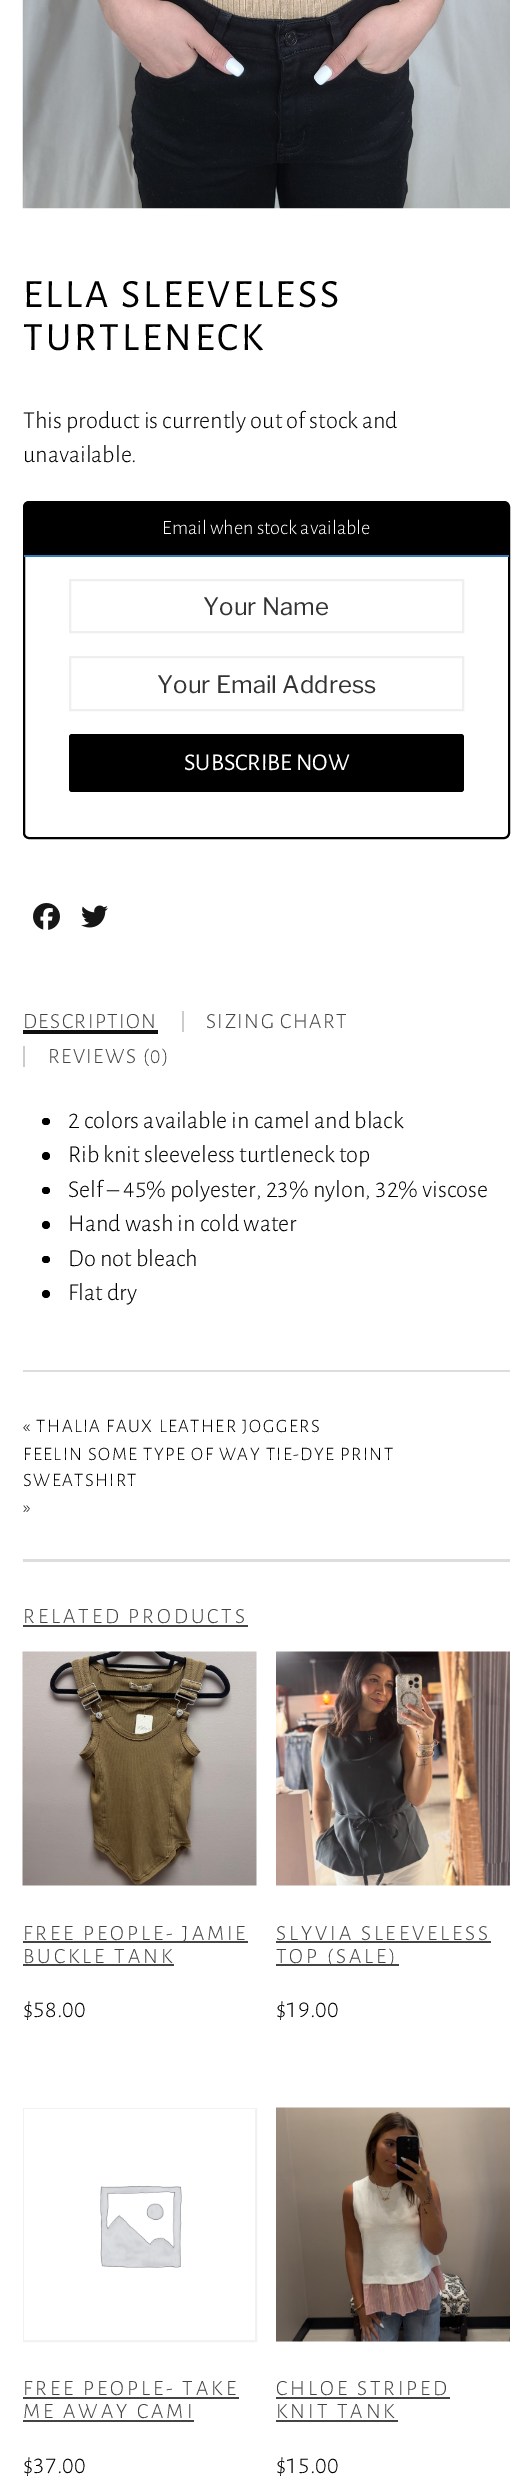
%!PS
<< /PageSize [532 2486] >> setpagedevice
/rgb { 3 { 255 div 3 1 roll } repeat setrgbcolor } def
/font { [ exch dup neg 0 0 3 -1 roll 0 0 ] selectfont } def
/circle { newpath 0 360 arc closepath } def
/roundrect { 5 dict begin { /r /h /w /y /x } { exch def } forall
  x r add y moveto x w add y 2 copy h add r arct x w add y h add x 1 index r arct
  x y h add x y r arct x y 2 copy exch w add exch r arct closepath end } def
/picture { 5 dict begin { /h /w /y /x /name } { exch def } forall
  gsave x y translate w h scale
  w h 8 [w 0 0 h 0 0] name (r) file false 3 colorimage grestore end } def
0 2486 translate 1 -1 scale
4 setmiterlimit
255 255 255 rgb
0 0 532 2486 rectfill
(img/1.rgb) 22 0 488 209 picture
0 0 0 rgb
2 setlinewidth
24 502 485 336 5 roundrect stroke
29 503 moveto 504 503 lineto 507 503 509 505 509 508 curveto 509 557 lineto 24 557 lineto 24 508 lineto 24 505 26 503 29 503 curveto closepath fill
51 122 183 rgb
24 555 485 2 rectfill
239 239 239 rgb
70 580 393 52 rectstroke
70 657 393 53 rectstroke
0 0 0 rgb
69 734 395 58 3 roundrect fill
(img/2.rgb) 33 903 27 27 picture
(img/3.rgb) 81 905 27 23 picture
15 15 15 rgb
23 1030 moveto 23 1034 lineto 158 1034 lineto 158 1016 lineto 158 1030 lineto closepath fill
204 204 204 rgb
182 1011 2 21 rectfill
23 1046 2 21 rectfill
0 0 0 rgb
42 1118 8 7 3.5 roundrect fill
46 1156 4 circle fill
42 1187 8 7 3.5 roundrect fill
46 1225 4 circle fill
42 1256 8 7 3.5 roundrect fill
46 1294 4 circle fill
[
  [23 1370 487 2 221 221 221]
  [23 1559 487 3 221 221 221]
  [23 1625 225 2 68 68 68]
] { aload pop rgb rectfill } forall
(img/4.rgb) 22 1651 235 235 picture
23 1941 225 2 rectfill
23 1964 151 2 rectfill
(img/5.rgb) 276 1651 234 235 picture
276 1941 215 2 rectfill
276 1964 123 2 rectfill
242 242 242 rgb
24 2109 232 232 rectstroke
(img/6.rgb) 24 2109 231 231 picture
68 68 68 rgb
23 2397 216 2 rectfill
23 2420 171 2 rectfill
(img/7.rgb) 276 2107 234 235 picture
276 2397 174 2 rectfill
276 2420 122 2 rectfill
/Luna-Regular 36 font
0 0 0 rgb
23 307 moveto 3 0 (ELLA SLEEVELESS) ashow
23 350 moveto 3 0 (TURTLENECK) ashow
/Luna-Light 21.6 font
23 428 moveto (This product is currently out of stock and) show
23 462 moveto (unavailable.) show
/Luna-Light 18 font
255 255 255 rgb
162 534 moveto (Email when stock available) show
/LibreFranklin-Regular 24 font
51 51 51 rgb
203 615 moveto (Your Name) show
157 693 moveto (Your Email Address) show
/Luna-Regular 21.6 font
255 255 255 rgb
184 770 moveto (SUBSCRIBE NOW) show
/Luna-Light 19.25 font
68 68 68 rgb
23 1028 moveto 1.5 0 (DESCRIPTION) ashow
206 1028 moveto 1.5 0 (SIZING CHART) ashow
48 1063 moveto 1.5 0 (REVIEWS \(0\)) ashow
/Luna-Light 21.6 font
0 0 0 rgb
[
  [(2 colors available in camel and black) 68 1128]
  [(Rib knit sleeveless turtleneck top) 68 1162]
  [(Self – 45% polyester, 23% nylon, 32% viscose) 68 1197]
  [(Hand wash in cold water) 68 1231]
  [(Do not bleach) 68 1266]
  [(Flat dry) 68 1300]
] { aload pop moveto show } forall
/Luna-Light 16.8 font
23 1432 moveto 1.5 0 (« THALIA FAUX LEATHER JOGGERS) ashow
23 1460 moveto 1.5 0 (FEELIN SOME TYPE OF WAY TIE-DYE PRINT) ashow
23 1486 moveto 1.5 0 (SWEATSHIRT) ashow
23 1513 moveto 1.5 0 (») ashow
/Luna-Light 19.25 font
68 68 68 rgb
23 1623 moveto 3 0 (RELATED PRODUCTS) ashow
23 1940 moveto 3 0 (FREE PEOPLE- JAMIE) ashow
23 1963 moveto 3 0 (BUCKLE TANK) ashow
/Luna-Light 21.6 font
0 0 0 rgb
23 2017 moveto ($58.00) show
/Luna-Light 19.25 font
68 68 68 rgb
276 1940 moveto 3 0 (SLYVIA SLEEVELESS) ashow
276 1963 moveto 3 0 (TOP \(SALE\)) ashow
/Luna-Light 21.6 font
0 0 0 rgb
276 2017 moveto ($19.00) show
/Luna-Light 19.25 font
68 68 68 rgb
23 2395 moveto 3 0 (FREE PEOPLE- TAKE) ashow
23 2418 moveto 3 0 (ME AWAY CAMI) ashow
/Luna-Light 21.6 font
0 0 0 rgb
23 2473 moveto ($37.00) show
/Luna-Light 19.25 font
68 68 68 rgb
276 2395 moveto 3 0 (CHLOE STRIPED) ashow
276 2418 moveto 3 0 (KNIT TANK) ashow
/Luna-Light 21.6 font
0 0 0 rgb
276 2473 moveto ($15.00) show
showpage
